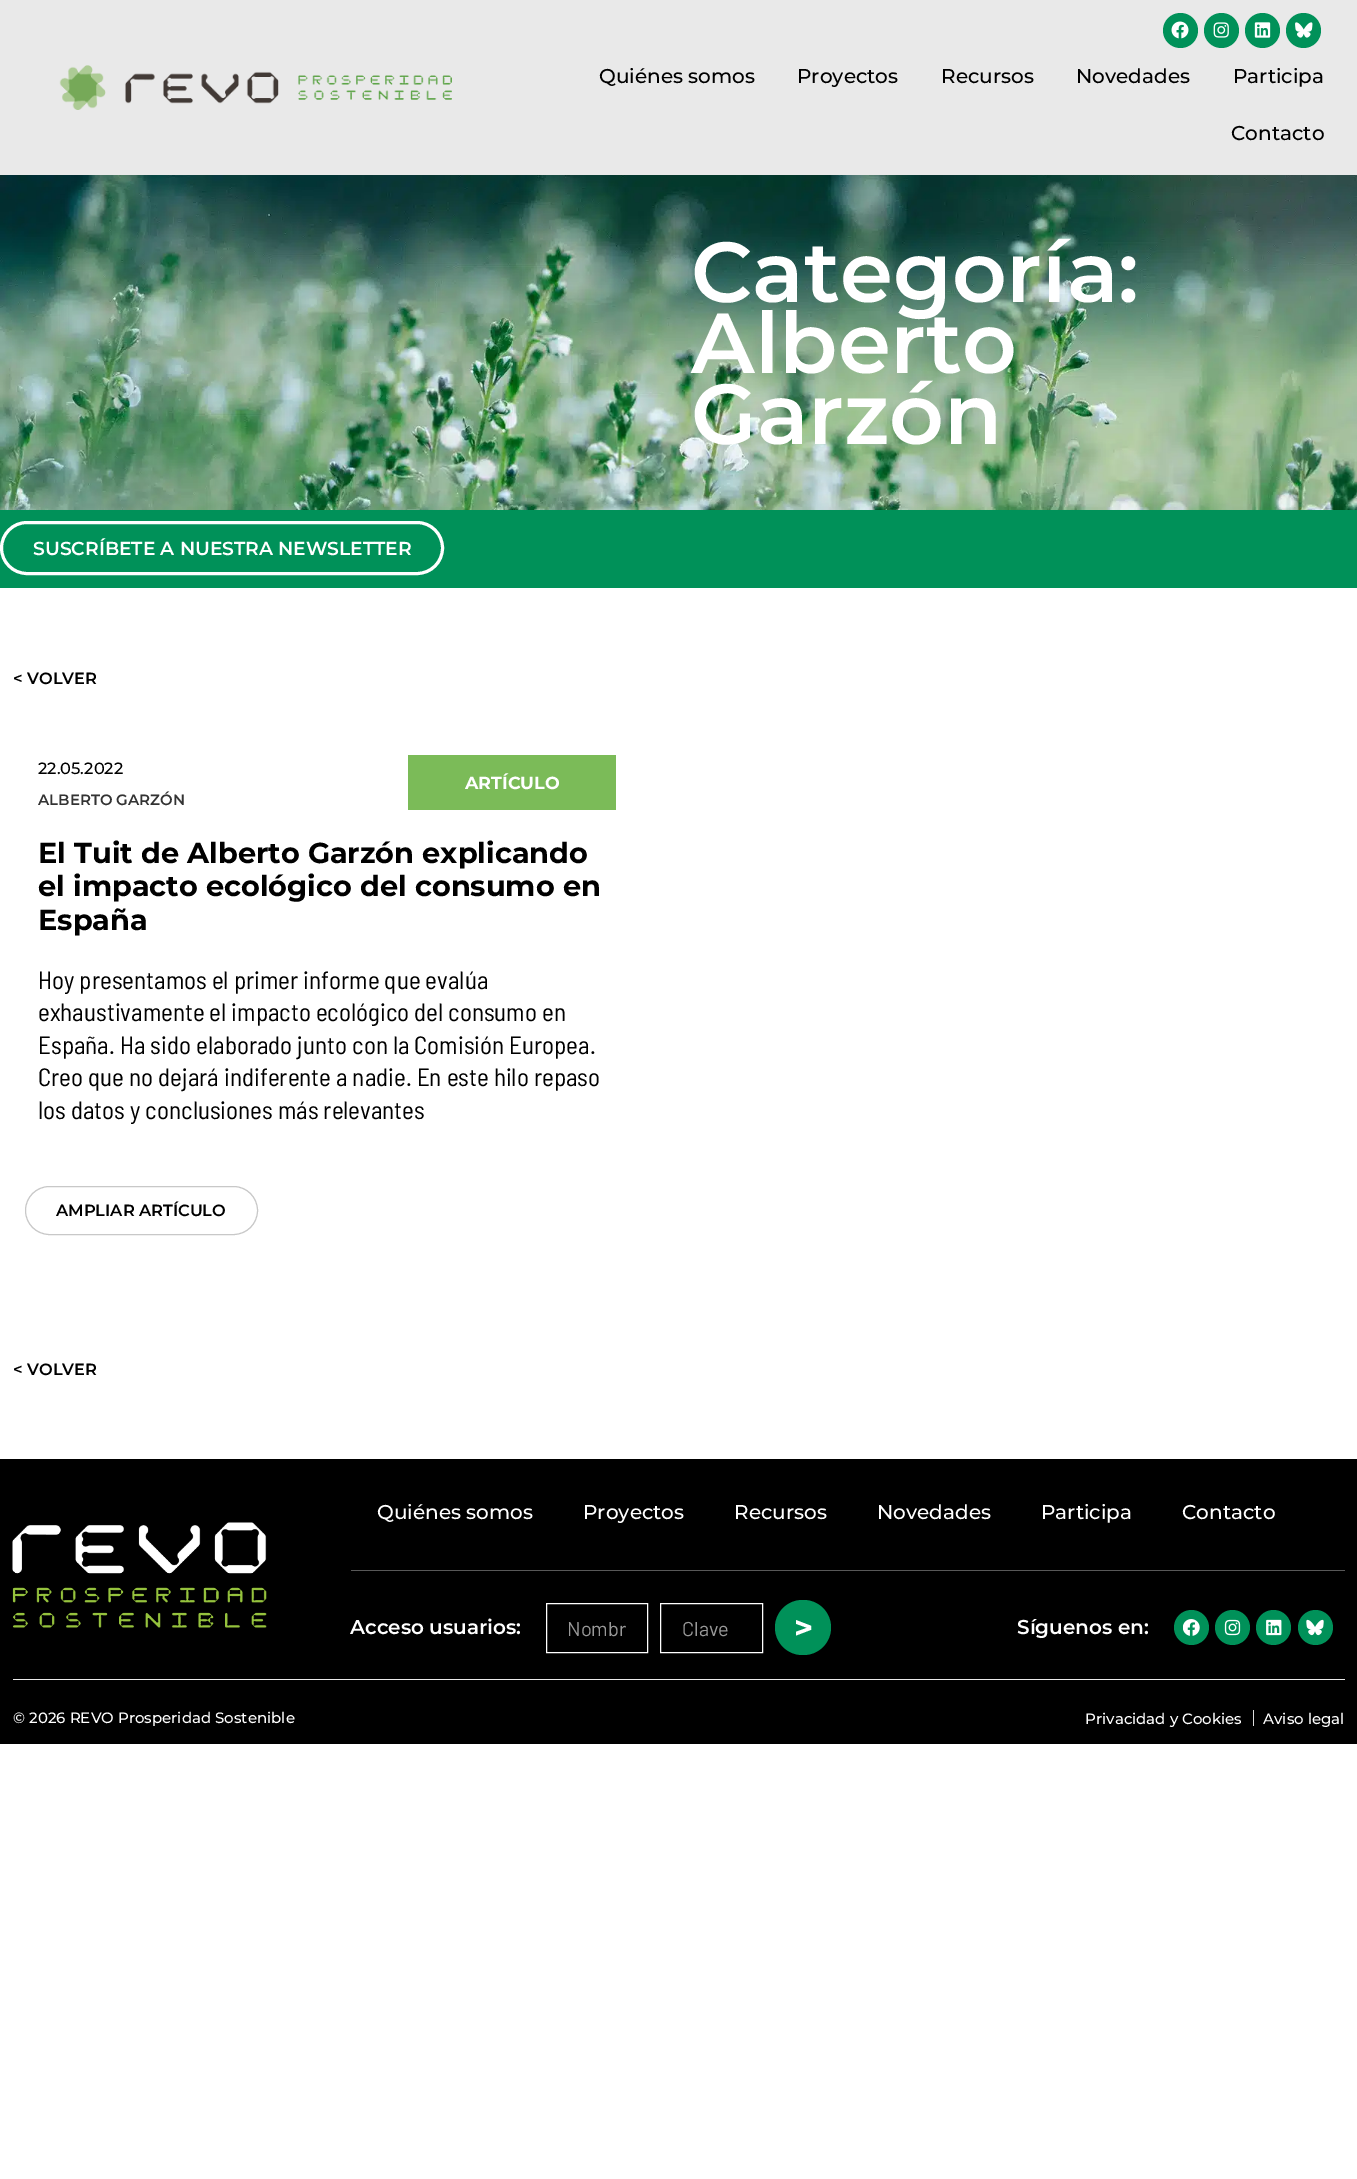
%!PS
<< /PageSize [1357 2179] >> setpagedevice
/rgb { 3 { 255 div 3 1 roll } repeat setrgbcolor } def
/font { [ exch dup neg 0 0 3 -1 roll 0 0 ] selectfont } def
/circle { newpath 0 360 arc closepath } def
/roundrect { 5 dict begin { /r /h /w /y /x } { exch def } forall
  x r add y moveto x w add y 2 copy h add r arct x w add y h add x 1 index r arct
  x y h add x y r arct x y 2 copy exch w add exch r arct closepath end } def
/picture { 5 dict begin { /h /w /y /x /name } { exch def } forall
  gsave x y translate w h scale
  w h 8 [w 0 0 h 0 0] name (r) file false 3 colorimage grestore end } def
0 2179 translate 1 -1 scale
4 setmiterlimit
255 255 255 rgb
0 0 1357 2179 rectfill
233 233 233 rgb
0 0 1357 175 rectfill
(img/1.rgb) 59 65 393 45 picture
0 145 89 rgb
1180.5 30.5 17.5 circle fill
(img/2.rgb) 1171 21 18 18 picture
1221.5 30.5 17.5 circle fill
(img/3.rgb) 1213 22 16 16 picture
1262.5 30.5 17.5 circle fill
(img/4.rgb) 1254 22 17 16 picture
1303.5 30.5 17.5 circle fill
(img/5.rgb) 1295 22 18 16 picture
(img/6.rgb) 0 175 1357 335 picture
0 510 1357 78 rectfill
255 255 255 rgb
3 setlinewidth
1.5 522.5 441 51 25.5 roundrect stroke
123 187 88 rgb
408 755 208 55 rectfill
200 200 200 rgb
1 setlinewidth
25.5 1186.5 232 48 24 roundrect stroke
0 0 0 rgb
0 1459 1357 285 rectfill
233 233 233 rgb
13 1679 1332 1 rectfill
(img/7.rgb) 12 1522 255 106 picture
88 88 88 rgb
351 1570 994 1 rectfill
255 255 255 rgb
546.5 1603.5 101 49 rectstroke
660.5 1603.5 102 49 rectstroke
0 145 89 rgb
775 1600 56 55 27.5 roundrect fill
1191.5 1627.5 17.5 circle fill
(img/8.rgb) 1183 1619 17 17 picture
1232.5 1627.5 17.5 circle fill
(img/9.rgb) 1224 1619 17 17 picture
1273.5 1627.5 17.5 circle fill
(img/10.rgb) 1266 1619 16 17 picture
1315.5 1627.5 17.5 circle fill
(img/11.rgb) 1306 1619 18 17 picture
221 221 221 rgb
1253 1710 1 16 rectfill
/Montserrat-Medium 20 font
0 0 0 rgb
[
  [(Quiénes somos) 599 83]
  [(Proyectos) 797 83]
  [(Recursos) 941 83]
  [(Novedades) 1076 83]
  [(Participa) 1233 83]
  [(Contacto) 1231 140]
] { aload pop moveto show } forall
/Montserrat-SemiBold 85 font
255 255 255 rgb
[
  [(Categoría:) 691 302]
  [(Alberto) 691 373]
  [(Garzón) 691 444]
] { aload pop moveto show } forall
/Montserrat-SemiBold 18.75 font
33 555 moveto (SUSCRÍBETE A NUESTRA NEWSLETTER) show
/Montserrat-SemiBold 16.25 font
0 0 0 rgb
13 684 moveto (< VOLVER) show
/Montserrat-Medium 16.25 font
38 774 moveto (22.05.2022) show
/Montserrat-SemiBold 15 font
51 51 51 rgb
38 805 moveto (ALBERTO GARZÓN) show
/Montserrat-Bold 17.5 font
255 255 255 rgb
465 789 moveto (ARTÍCULO) show
/Montserrat-Bold 28.75 font
0 0 0 rgb
[
  [(El Tuit de Alberto Garzón explicando) 38 863]
  [(el impacto ecológico del consumo en) 38 896]
  [(España) 38 930]
] { aload pop moveto show } forall
/BarlowSemiCondensed-Regular 25 font
[
  [(Hoy presentamos el primer informe que evalúa) 38 989]
  [(exhaustivamente el impacto ecológico del consumo en) 38 1021]
  [(España. Ha sido elaborado junto con la Comisión Europea.) 38 1054]
  [(Creo que no dejará indiferente a nadie. En este hilo repaso) 38 1086]
  [(los datos y conclusiones más relevantes) 38 1119]
] { aload pop moveto show } forall
/Montserrat-SemiBold 16.25 font
56 1216 moveto (AMPLIAR ARTÍCULO) show
13 1375 moveto (< VOLVER) show
/Montserrat-Medium 20 font
255 255 255 rgb
[
  [(Quiénes somos) 377 1519]
  [(Proyectos) 583 1519]
  [(Recursos) 734 1519]
  [(Novedades) 877 1519]
  [(Participa) 1041 1519]
  [(Contacto) 1182 1519]
] { aload pop moveto show } forall
/Montserrat-SemiBold 20 font
350 1634 moveto (Acceso usuarios:) show
/Barlow-Regular 20 font
153 153 153 rgb
567 1636 moveto (Nombr) show
682 1636 moveto (Clave) show
/Montserrat-Bold 32 font
255 255 255 rgb
794 1639 moveto (>) show
/Montserrat-SemiBold 20 font
1017 1634 moveto (Síguenos en:) show
/Montserrat-Medium 15 font
[
  [(© 2026 REVO Prosperidad Sostenible) 13 1723]
  [(Privacidad y Cookies) 1085 1724]
  [(Aviso legal) 1263 1724]
] { aload pop moveto show } forall
showpage
